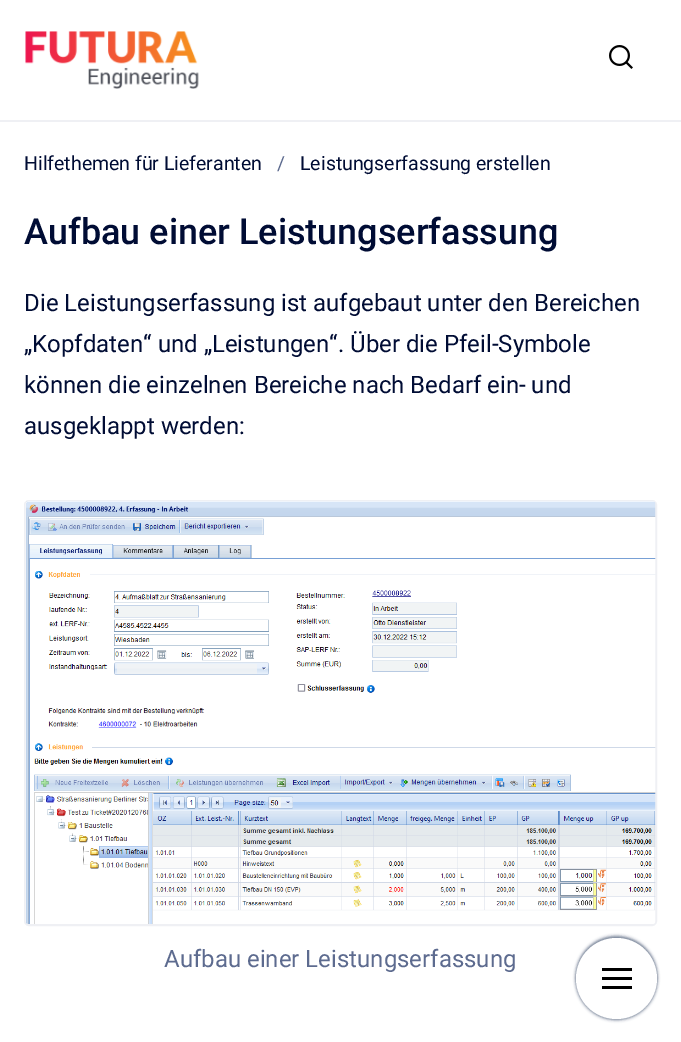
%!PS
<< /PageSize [681 1042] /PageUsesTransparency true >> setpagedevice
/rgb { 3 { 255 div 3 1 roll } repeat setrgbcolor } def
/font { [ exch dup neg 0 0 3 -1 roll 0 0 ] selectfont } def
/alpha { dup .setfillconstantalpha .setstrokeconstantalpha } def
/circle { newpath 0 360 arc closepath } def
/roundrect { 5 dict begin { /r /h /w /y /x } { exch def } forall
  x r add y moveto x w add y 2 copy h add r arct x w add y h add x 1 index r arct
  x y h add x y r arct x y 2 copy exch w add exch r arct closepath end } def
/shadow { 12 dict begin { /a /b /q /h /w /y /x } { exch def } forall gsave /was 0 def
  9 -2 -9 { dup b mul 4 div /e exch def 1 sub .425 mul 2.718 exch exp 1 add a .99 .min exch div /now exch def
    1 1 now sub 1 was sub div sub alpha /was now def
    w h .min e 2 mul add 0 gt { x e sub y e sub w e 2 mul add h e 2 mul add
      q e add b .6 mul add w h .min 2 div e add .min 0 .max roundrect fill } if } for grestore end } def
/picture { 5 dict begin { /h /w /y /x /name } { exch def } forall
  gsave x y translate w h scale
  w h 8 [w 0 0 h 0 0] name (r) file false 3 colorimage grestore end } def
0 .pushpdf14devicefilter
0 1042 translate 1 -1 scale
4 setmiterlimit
255 255 255 rgb
0 0 681 1042 rectfill
239 240 244 rgb
0 120 681 2 rectfill
(img/1.rgb) 25 31 174 58 picture
(img/2.rgb) 609 45 24 24 picture
2 setlinewidth
25 501 631 424 4 roundrect stroke
(img/3.rgb) 25 501 631 423 picture
122 134 154 rgb
576 936 81 81 40.5 1.5 1 shadow
576 939 81 81 40.5 1.5 1 shadow
255 255 255 rgb
616.5 978.5 40.5 circle fill
[
  [602 968 30 3 0 0 0]
  [602 977 30 3 0 0 0]
  [602 986 30 3 0 0 0]
] { aload pop rgb rectfill } forall
/Roboto-Regular 19.5 font
0 12 52 rgb
24 170 moveto (Hilfethemen für Lieferanten) show
93 107 143 rgb
277 170 moveto (/) show
0 12 52 rgb
300 170 moveto (Leistungserfassung erstellen) show
/Roboto-Medium 36 font
24 244 moveto (Aufbau einer Leistungserfassung) show
/Roboto-Regular 24 font
[
  [(Die Leistungserfassung ist aufgebaut unter den Bereichen) 24 311]
  [(„Kopfdaten“ und „Leistungen“. Über die Pfeil-Symbole) 24 352]
  [(können die einzelnen Bereiche nach Bedarf ein- und) 24 393]
  [(ausgeklappt werden:) 24 434]
] { aload pop moveto show } forall
93 107 143 rgb
164 967 moveto (Aufbau einer Leistungserfassung) show
.poppdf14devicefilter showpage
